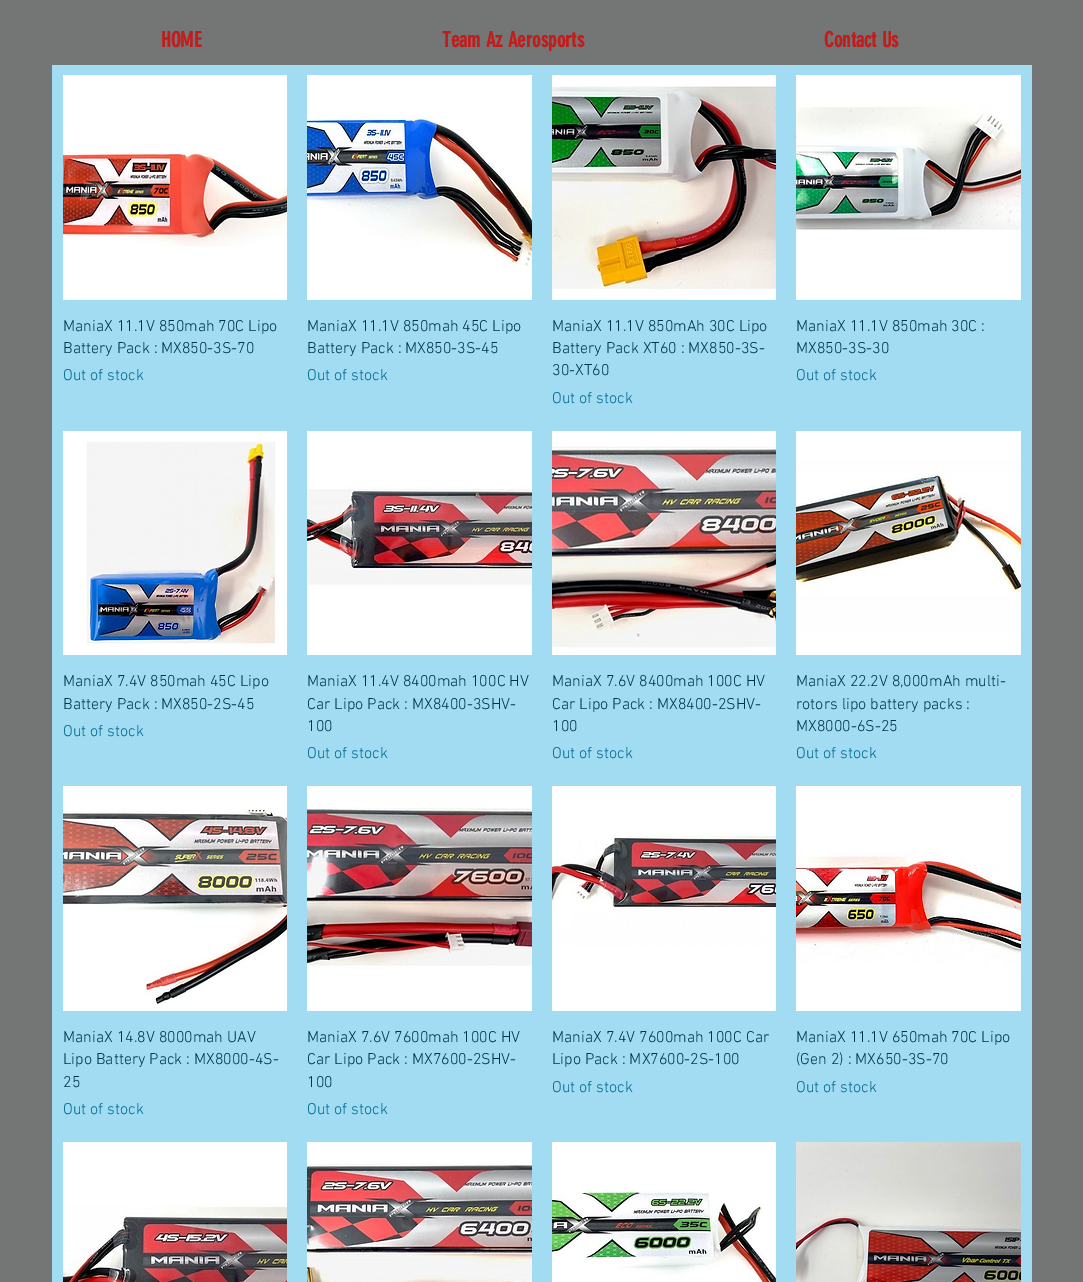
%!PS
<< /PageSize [1083 1282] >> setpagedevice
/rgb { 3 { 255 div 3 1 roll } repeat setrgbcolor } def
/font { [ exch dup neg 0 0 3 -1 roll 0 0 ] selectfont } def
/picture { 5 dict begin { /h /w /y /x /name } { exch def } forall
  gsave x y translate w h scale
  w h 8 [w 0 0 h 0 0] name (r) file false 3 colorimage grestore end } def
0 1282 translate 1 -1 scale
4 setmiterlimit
116 117 117 rgb
0 0 1083 1282 rectfill
161 220 242 rgb
52 65 980 1217 rectfill
(img/1.rgb) 63 75 224 225 picture
(img/2.rgb) 307 75 225 225 picture
(img/3.rgb) 552 75 224 225 picture
(img/4.rgb) 796 75 225 225 picture
(img/5.rgb) 63 431 224 224 picture
(img/6.rgb) 307 431 225 224 picture
(img/7.rgb) 552 431 224 224 picture
(img/8.rgb) 796 431 225 224 picture
(img/9.rgb) 63 786 224 225 picture
(img/10.rgb) 307 786 225 225 picture
(img/11.rgb) 552 786 224 225 picture
(img/12.rgb) 796 786 225 225 picture
(img/13.rgb) 63 1142 224 140 picture
(img/14.rgb) 307 1142 225 140 picture
(img/15.rgb) 552 1142 224 140 picture
(img/16.rgb) 796 1142 225 140 picture
/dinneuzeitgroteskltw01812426-Bold 21 font
196 27 27 rgb
[
  [(HOME) 161 47]
  [(Team Az Aerosports) 442 47]
  [(Contact Us) 824 47]
] { aload pop moveto show } forall
/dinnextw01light-Light 16 font
0 52 72 rgb
63 331 moveto (ManiaX 11.1V 850mah 70C Lipo) show
63 353 moveto (Battery Pack : MX850-3S-70) show
0 105 144 rgb
63 380 moveto (Out of stock) show
0 52 72 rgb
307 331 moveto (ManiaX 11.1V 850mah 45C Lipo) show
307 353 moveto (Battery Pack : MX850-3S-45) show
0 105 144 rgb
307 380 moveto (Out of stock) show
0 52 72 rgb
[
  [(ManiaX 11.1V 850mAh 30C Lipo) 552 331]
  [(Battery Pack XT60 : MX850-3S-) 552 353]
  [(30-XT60) 552 375]
] { aload pop moveto show } forall
0 105 144 rgb
552 403 moveto (Out of stock) show
0 52 72 rgb
796 331 moveto (ManiaX 11.1V 850mah 30C :) show
796 353 moveto (MX850-3S-30) show
0 105 144 rgb
796 380 moveto (Out of stock) show
0 52 72 rgb
63 686 moveto (ManiaX 7.4V 850mah 45C Lipo) show
63 709 moveto (Battery Pack : MX850-2S-45) show
0 105 144 rgb
63 736 moveto (Out of stock) show
0 52 72 rgb
[
  [(ManiaX 11.4V 8400mah 100C HV) 307 686]
  [(Car Lipo Pack : MX8400-3SHV-) 307 709]
  [(100) 307 731]
] { aload pop moveto show } forall
0 105 144 rgb
307 758 moveto (Out of stock) show
0 52 72 rgb
[
  [(ManiaX 7.6V 8400mah 100C HV) 552 686]
  [(Car Lipo Pack : MX8400-2SHV-) 552 709]
  [(100) 552 731]
] { aload pop moveto show } forall
0 105 144 rgb
552 758 moveto (Out of stock) show
0 52 72 rgb
[
  [(ManiaX 22.2V 8,000mAh multi-) 796 686]
  [(rotors lipo battery packs :) 796 709]
  [(MX8000-6S-25) 796 731]
] { aload pop moveto show } forall
0 105 144 rgb
796 758 moveto (Out of stock) show
0 52 72 rgb
[
  [(ManiaX 14.8V 8000mah UAV) 63 1042]
  [(Lipo Battery Pack : MX8000-4S-) 63 1064]
  [(25) 63 1087]
] { aload pop moveto show } forall
0 105 144 rgb
63 1114 moveto (Out of stock) show
0 52 72 rgb
[
  [(ManiaX 7.6V 7600mah 100C HV) 307 1042]
  [(Car Lipo Pack : MX7600-2SHV-) 307 1064]
  [(100) 307 1087]
] { aload pop moveto show } forall
0 105 144 rgb
307 1114 moveto (Out of stock) show
0 52 72 rgb
552 1042 moveto (ManiaX 7.4V 7600mah 100C Car) show
552 1064 moveto (Lipo Pack : MX7600-2S-100) show
0 105 144 rgb
552 1092 moveto (Out of stock) show
0 52 72 rgb
796 1042 moveto (ManiaX 11.1V 650mah 70C Lipo) show
796 1064 moveto (\(Gen 2\) : MX650-3S-70) show
0 105 144 rgb
796 1092 moveto (Out of stock) show
showpage
